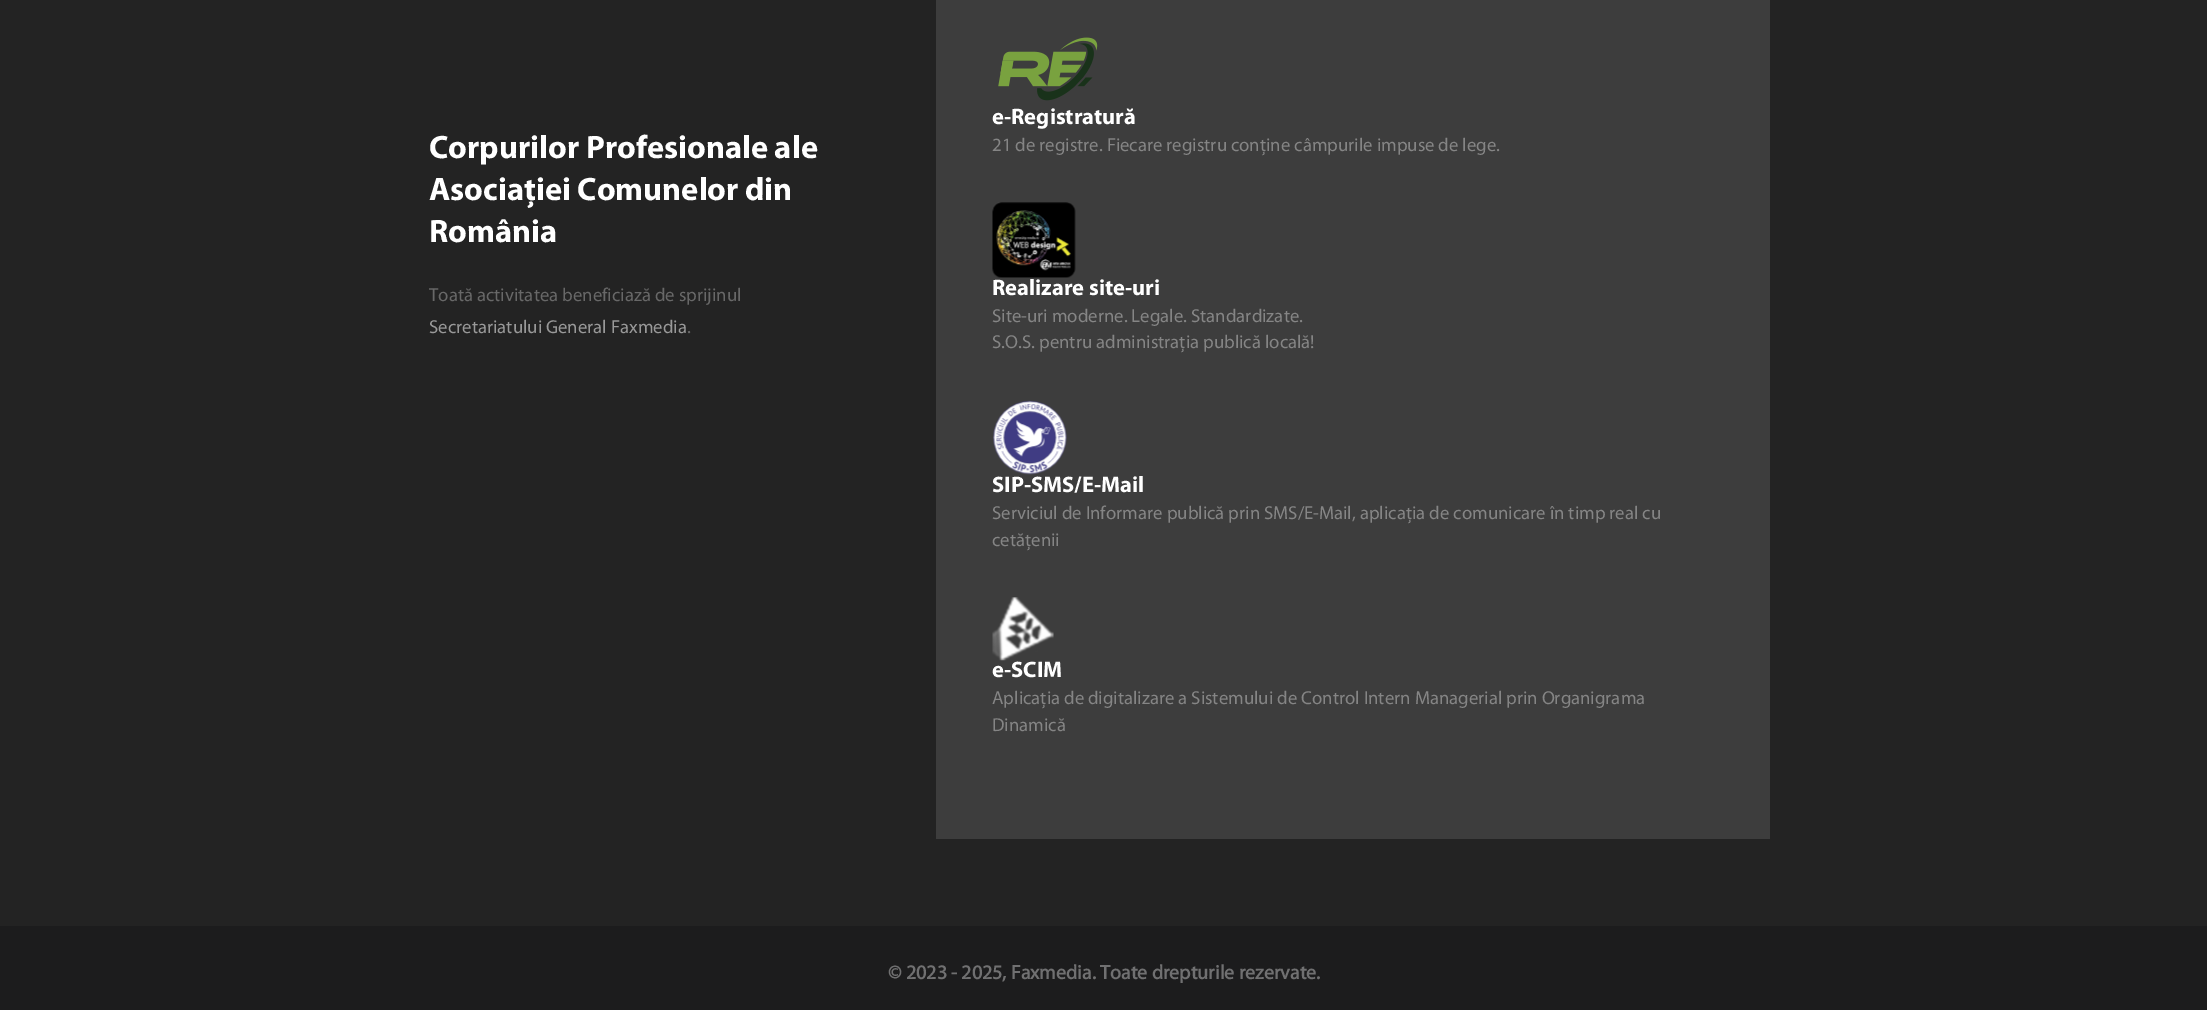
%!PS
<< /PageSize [2207 1010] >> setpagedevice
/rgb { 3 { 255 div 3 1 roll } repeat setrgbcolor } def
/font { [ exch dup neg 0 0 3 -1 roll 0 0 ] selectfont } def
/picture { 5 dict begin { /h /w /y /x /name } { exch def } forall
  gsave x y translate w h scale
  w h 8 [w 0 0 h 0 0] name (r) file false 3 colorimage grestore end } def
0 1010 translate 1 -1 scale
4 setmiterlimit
35 35 35 rgb
0 0 2207 1010 rectfill
61 61 61 rgb
936 0 834 839 rectfill
(img/1.rgb) 998 37 100 64 picture
(img/2.rgb) 992 202 84 76 picture
(img/3.rgb) 993 400 74 75 picture
(img/4.rgb) 992 597 62 64 picture
28 28 29 rgb
0 926 2207 84 rectfill
/Myriad-Bold 32.5 font
255 255 255 rgb
[
  [(Corpurilor Profesionale ale) 429 158]
  [(Asociației Comunelor din) 429 200]
  [(România) 429 242]
] { aload pop moveto show } forall
/Myriad-Regular 18.75 font
104 104 104 rgb
429 301 moveto (Toată activitatea beneficiază de sprijinul) show
153 153 153 rgb
429 333 moveto (Secretariatului General Faxmedia) show
104 104 104 rgb
687 333 moveto (.) show
/Myriad-Bold 22.5 font
255 255 255 rgb
992 124 moveto (e-Registratură) show
/Myriad-Regular 18.75 font
133 133 133 rgb
992 151 moveto (21 de registre. Fiecare registru conține câmpurile impuse de lege.) show
/Myriad-Bold 22.5 font
255 255 255 rgb
992 295 moveto (Realizare site-uri) show
/Myriad-Regular 18.75 font
133 133 133 rgb
992 322 moveto (Site-uri moderne. Legale. Standardizate.) show
992 348 moveto (S.O.S. pentru administrația publică locală!) show
/Myriad-Bold 22.5 font
255 255 255 rgb
992 492 moveto (SIP-SMS/E-Mail) show
/Myriad-Regular 18.75 font
133 133 133 rgb
992 519 moveto (Serviciul de Informare publică prin SMS/E-Mail, aplicația de comunicare în timp real cu) show
992 546 moveto (cetățenii) show
/Myriad-Bold 22.5 font
255 255 255 rgb
992 677 moveto (e-SCIM) show
/Myriad-Regular 18.75 font
133 133 133 rgb
992 704 moveto (Aplicația de digitalizare a Sistemului de Control Intern Managerial prin Organigrama) show
992 731 moveto (Dinamică) show
/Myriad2-Bold 20 font
112 112 113 rgb
888 979 moveto (© 2023 - 2025, Faxmedia. Toate drepturile rezervate.) show
showpage
